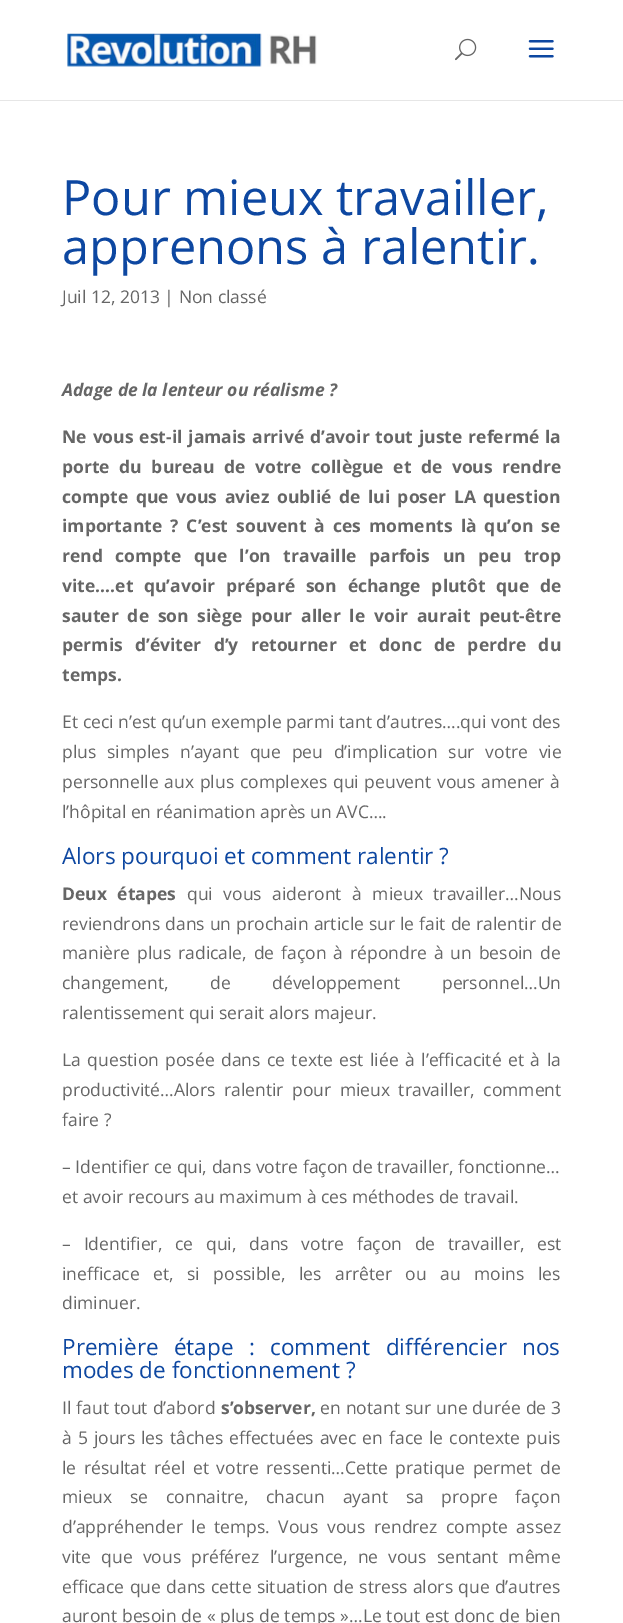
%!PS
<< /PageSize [623 1623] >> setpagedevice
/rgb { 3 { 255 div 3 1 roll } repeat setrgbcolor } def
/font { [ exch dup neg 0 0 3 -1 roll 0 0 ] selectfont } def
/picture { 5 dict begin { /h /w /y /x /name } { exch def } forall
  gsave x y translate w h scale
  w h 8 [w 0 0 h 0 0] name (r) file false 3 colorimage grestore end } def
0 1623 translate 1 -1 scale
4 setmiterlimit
255 255 255 rgb
0 0 623 1623 rectfill
230 230 230 rgb
0 100 moveto 0 101 lineto 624 101 lineto 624 1 lineto 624 100 lineto closepath fill
(img/1.rgb) 67 33 250 34 picture
(img/2.rgb) 455 38 22 23 picture
(img/3.rgb) 528 40 26 18 picture
/OpenSans-Regular 48.75 font
13 71 161 rgb
62 215 moveto (Pour mieux travailler,) show
62 264 moveto (apprenons à ralentir.) show
/OpenSans-Regular 17.5 font
102 102 102 rgb
62 303 moveto (Juil 12, 2013 | Non classé) show
/OpenSans-BoldItalic 17.5 font
62 396 moveto (Adage de la lenteur ou réalisme ?) show
/OpenSans-Bold 17.5 font
62 443 moveto 1.4 0 32 (Ne vous est-il jamais arrivé d’avoir tout juste refermé la) widthshow
62 473 moveto 5 0 32 (porte du bureau de votre collègue et de vous rendre) widthshow
62 503 moveto 3 0 32 (compte que vous aviez oublié de lui poser LA question) widthshow
62 532 moveto 3.5 0 32 (importante ? C’est souvent à ces moments là qu’on se) widthshow
62 562 moveto 8 0 32 (rend compte que l’on travaille parfois un peu trop) widthshow
62 592 moveto 6.25 0 32 (vite….et qu’avoir préparé son échange plutôt que de) widthshow
62 622 moveto 4.25 0 32 (sauter de son siège pour aller le voir aurait peut-être) widthshow
62 651 moveto 7.75 0 32 (permis d’éviter d’y retourner et donc de perdre du) widthshow
62 681 moveto (temps.) show
/OpenSans-Regular 17.5 font
62 728 moveto 0.1 0 32 (Et ceci n’est qu’un exemple parmi tant d’autres….qui vont des) widthshow
62 758 moveto 6.25 0 32 (plus simples n’ayant que peu d’implication sur votre vie) widthshow
62 788 moveto 1.25 0 32 (personnelle aux plus complexes qui peuvent vous amener à) widthshow
62 818 moveto (l’hôpital en réanimation après un AVC….) show
/OpenSans-Regular 22.5 font
13 71 161 rgb
62 864 moveto (Alors pourquoi et comment ralentir ?) show
/OpenSans-Bold 17.5 font
102 102 102 rgb
62 900 moveto 6 0 32 (Deux étapes) widthshow
/OpenSans-Regular 17.5 font
187 900 moveto 6 0 32 (qui vous aideront à mieux travailler…Nous) widthshow
62 930 moveto 0.5 0 32 (reviendrons dans un prochain article sur le fait de ralentir de) widthshow
62 959 moveto 2.4 0 32 (manière plus radicale, de façon à répondre à un besoin de) widthshow
62 989 moveto 37 0 32 (changement, de développement personnel…Un) widthshow
62 1019 moveto (ralentissement qui serait alors majeur.) show
62 1066 moveto 1.9 0 32 (La question posée dans ce texte est liée à l’efficacité et à la) widthshow
62 1096 moveto 4 0 32 (productivité…Alors ralentir pour mieux travailler, comment) widthshow
[
  [(faire ?) 62 1126]
  [(– Identifier ce qui, dans votre façon de travailler, fonctionne…) 62 1173]
  [(et avoir recours au maximum à ces méthodes de travail.) 62 1203]
] { aload pop moveto show } forall
62 1250 moveto 8.25 0 32 (– Identifier, ce qui, dans votre façon de travailler, est) widthshow
62 1280 moveto 9 0 32 (inefficace et, si possible, les arrêter ou au moins les) widthshow
62 1309 moveto (diminuer.) show
/OpenSans-Regular 22.5 font
13 71 161 rgb
62 1355 moveto 9.5 0 32 (Première étape : comment différencier nos) widthshow
62 1378 moveto (modes de fonctionnement ?) show
/OpenSans-Regular 17.5 font
102 102 102 rgb
62 1414 moveto 0.5 0 32 (Il faut tout d’abord) widthshow
/OpenSans-Bold 17.5 font
221 1414 moveto (s’observer,) show
/OpenSans-Regular 17.5 font
320 1414 moveto 0.5 0 32 (en notant sur une durée de 3) widthshow
62 1444 moveto 1.5 0 32 (à 5 jours les tâches effectuées avec en face le contexte puis) widthshow
62 1474 moveto 3 0 32 (le résultat réel et votre ressenti…Cette pratique permet de) widthshow
62 1503 moveto 13.25 0 32 (mieux se connaitre, chacun ayant sa propre façon) widthshow
62 1533 moveto 4 0 32 (d’appréhender le temps. Vous vous rendrez compte assez) widthshow
62 1563 moveto 5.5 0 32 (vite que vous préférez l’urgence, ne vous sentant même) widthshow
62 1593 moveto 0.75 0 32 (efficace que dans cette situation de stress alors que d’autres) widthshow
62 1622 moveto 0.25 0 32 (auront besoin de « plus de temps »…Le tout est donc de bien) widthshow
showpage
